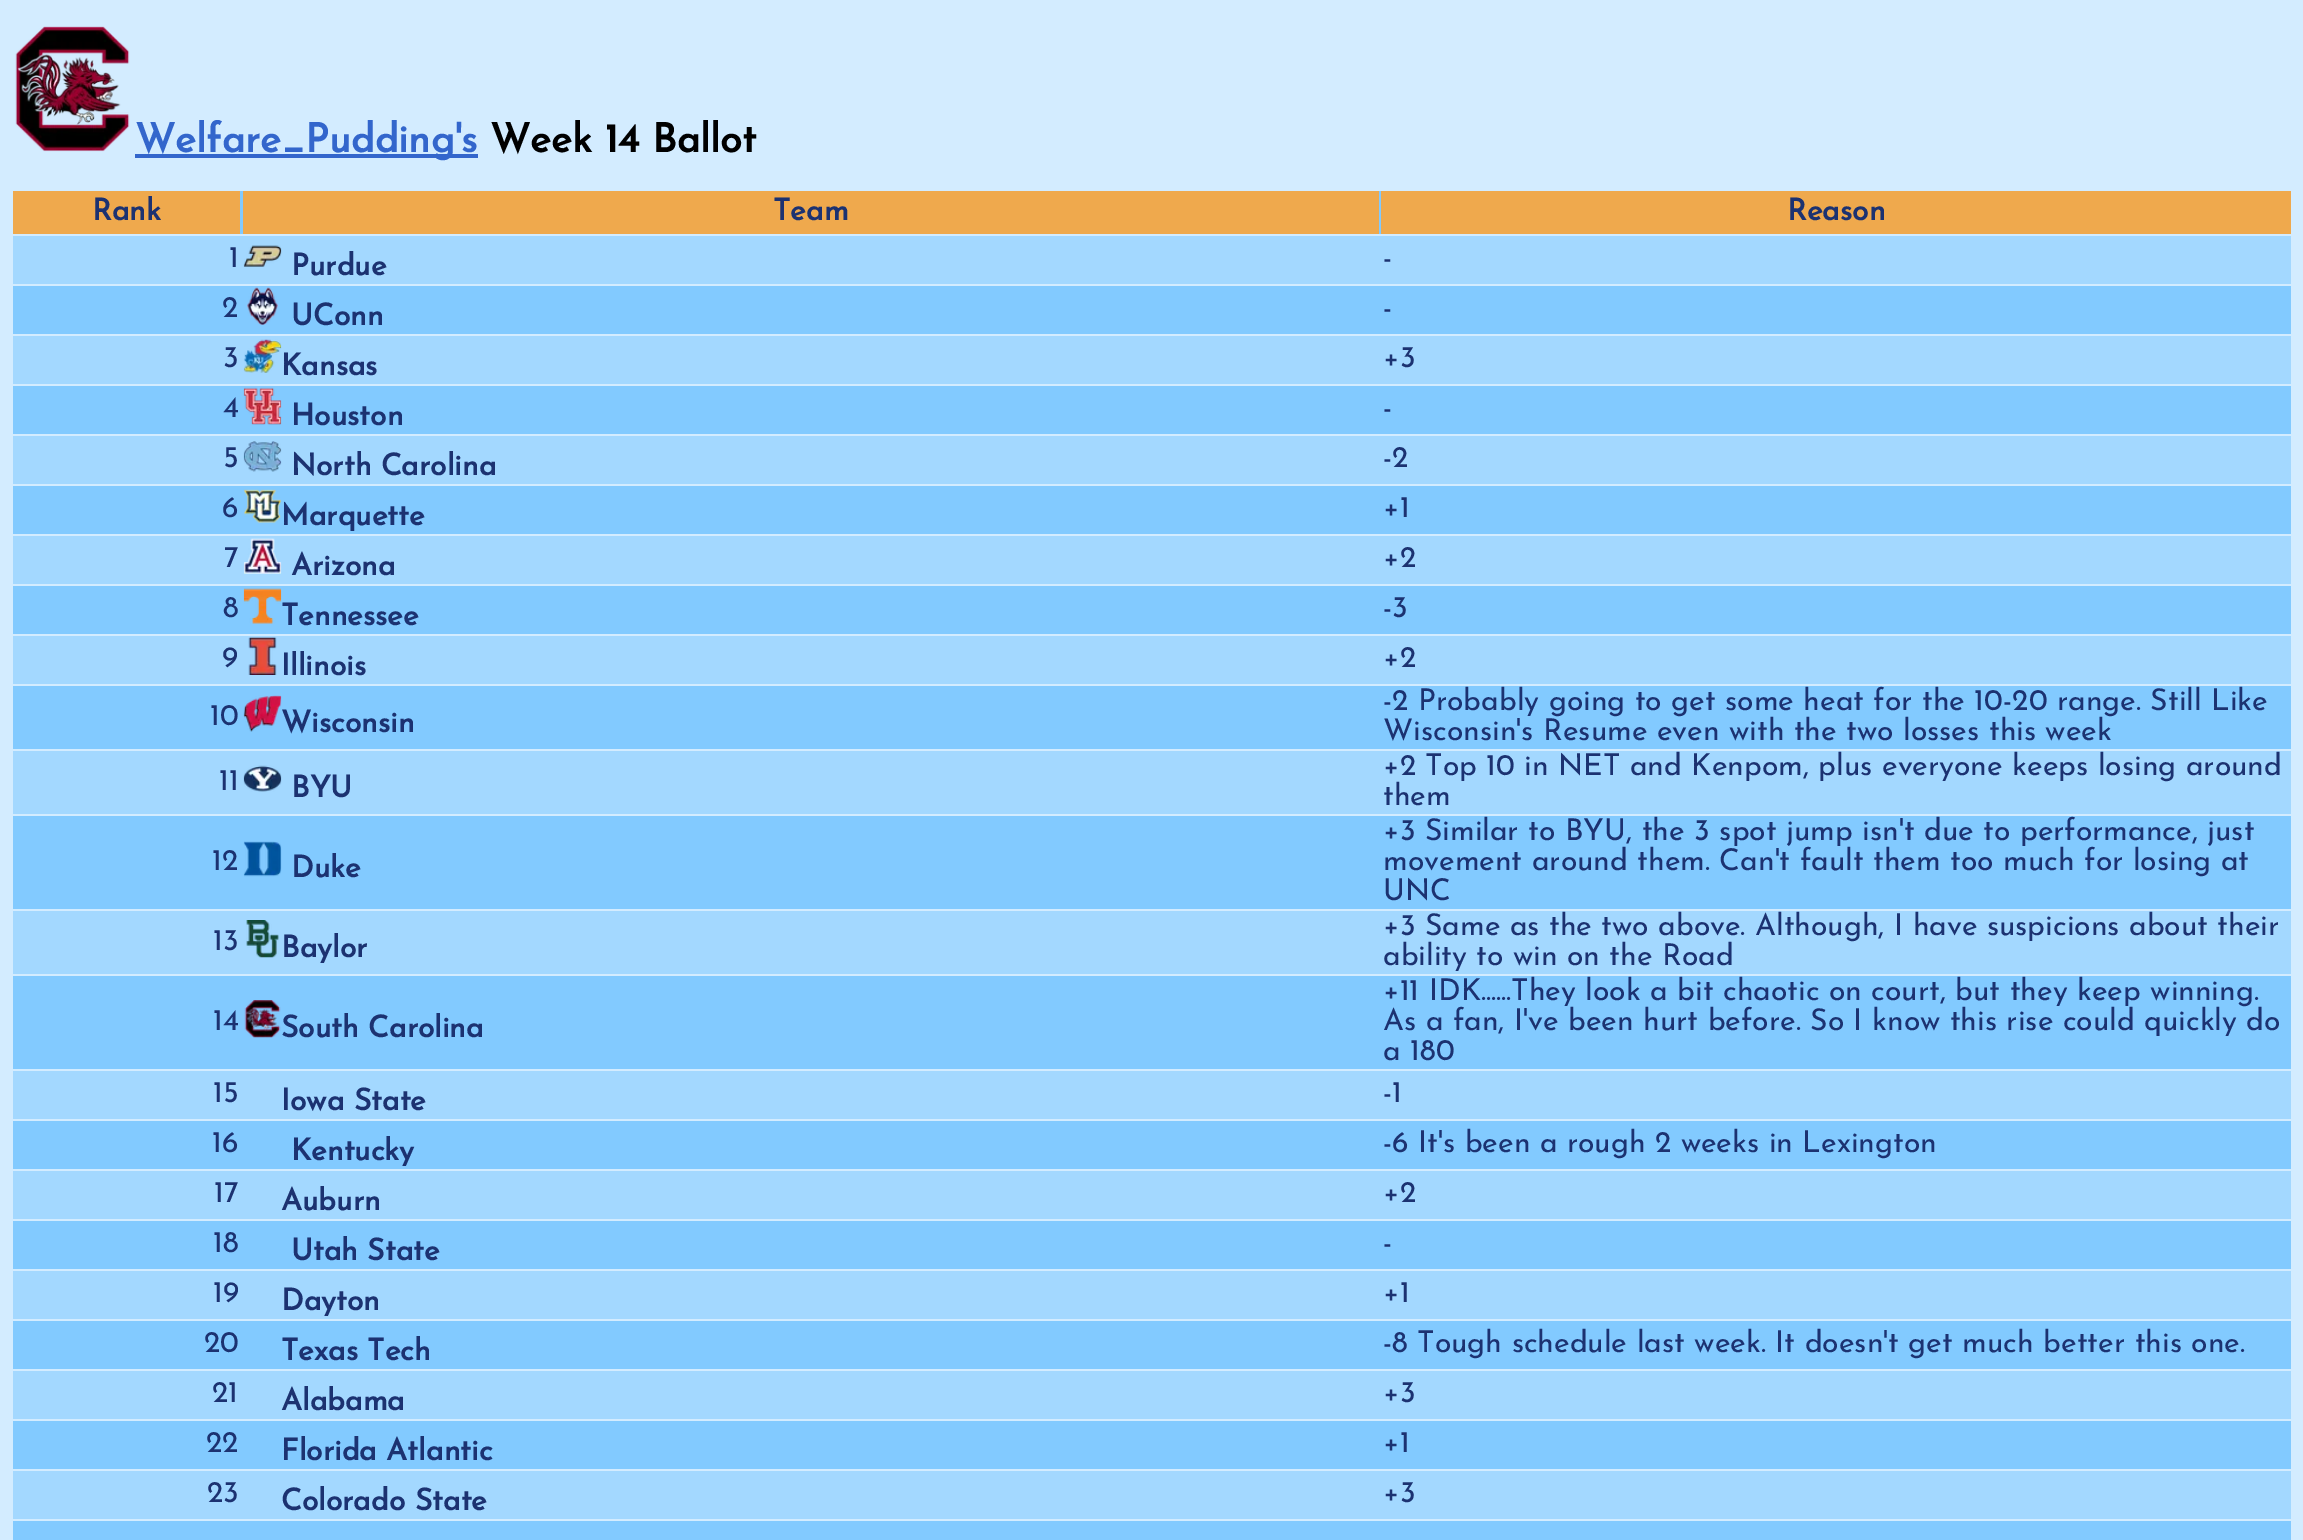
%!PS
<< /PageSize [2303 1540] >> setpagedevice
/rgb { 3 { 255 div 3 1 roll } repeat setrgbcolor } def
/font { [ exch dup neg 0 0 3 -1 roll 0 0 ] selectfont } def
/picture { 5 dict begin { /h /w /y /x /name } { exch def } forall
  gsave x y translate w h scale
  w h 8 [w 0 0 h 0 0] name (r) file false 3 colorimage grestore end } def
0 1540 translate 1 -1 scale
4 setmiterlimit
211 236 255 rgb
0 0 2303 1540 rectfill
(img/1.rgb) 15 26 115 126 picture
[
  [135 154 343 4 51 102 204]
  [240 191 1141 43 130 202 255]
  [13 191 227 43 239 169 77]
  [243 191 1136 43 239 169 77]
  [1381 191 910 43 239 169 77]
  [13 236 2278 48 163 216 255]
] { aload pop rgb rectfill } forall
(img/2.rgb) 243 245 39 22 picture
130 202 255 rgb
13 286 2278 48 rectfill
(img/3.rgb) 247 287 31 38 picture
163 216 255 rgb
13 336 2278 48 rectfill
(img/4.rgb) 243 339 39 34 picture
130 202 255 rgb
13 386 2278 48 rectfill
(img/5.rgb) 243 387 39 38 picture
163 216 255 rgb
13 436 2278 48 rectfill
(img/6.rgb) 243 441 39 31 picture
130 202 255 rgb
13 486 2278 48 rectfill
(img/7.rgb) 243 489 39 34 picture
163 216 255 rgb
13 536 2278 48 rectfill
(img/8.rgb) 243 538 39 36 picture
130 202 255 rgb
13 586 2278 48 rectfill
(img/9.rgb) 243 588 39 36 picture
163 216 255 rgb
13 636 2278 48 rectfill
(img/10.rgb) 248 637 29 38 picture
130 202 255 rgb
13 686 2278 63 rectfill
(img/11.rgb) 243 695 39 37 picture
163 216 255 rgb
13 751 2278 63 rectfill
(img/12.rgb) 243 765 39 27 picture
130 202 255 rgb
13 816 2278 93 rectfill
(img/13.rgb) 243 841 39 36 picture
163 216 255 rgb
13 911 2278 63 rectfill
(img/14.rgb) 246 920 33 38 picture
130 202 255 rgb
13 976 2278 93 rectfill
(img/15.rgb) 244 1000 37 38 picture
[
  [13 1071 2278 48 163 216 255]
  [13 1121 2278 48 130 202 255]
  [13 1171 2278 48 163 216 255]
  [13 1221 2278 48 130 202 255]
  [13 1271 2278 48 163 216 255]
  [13 1321 2278 48 130 202 255]
  [13 1371 2278 48 163 216 255]
  [13 1421 2278 48 130 202 255]
  [13 1471 2278 48 163 216 255]
  [13 1521 2278 19 130 202 255]
] { aload pop rgb rectfill } forall
/JosefinSans-Bold 40 font
51 102 204 rgb
135 152 moveto (Welfare_Pudding's) show
0 0 0 rgb
490 152 moveto (Week 14 Ballot) show
/JosefinSans-Bold 30 font
28 50 113 rgb
[
  [(Rank) 92 220]
  [(Team) 773 220]
  [(Reason) 1787 220]
] { aload pop moveto show } forall
/JosefinSans-Regular 30 font
229 267 moveto (1) show
/JosefinSans-Bold 30 font
291 275 moveto (Purdue) show
/JosefinSans-Regular 30 font
1383 267 moveto (-) show
222 317 moveto (2) show
/JosefinSans-Bold 30 font
291 325 moveto (UConn) show
/JosefinSans-Regular 30 font
1383 317 moveto (-) show
223 367 moveto (3) show
/JosefinSans-Bold 30 font
281 375 moveto (Kansas) show
/JosefinSans-Regular 30 font
1383 367 moveto (+3) show
223 417 moveto (4) show
/JosefinSans-Bold 30 font
291 425 moveto (Houston) show
/JosefinSans-Regular 30 font
1383 417 moveto (-) show
223 467 moveto (5) show
/JosefinSans-Bold 30 font
291 475 moveto (North Carolina) show
/JosefinSans-Regular 30 font
1383 467 moveto (-2) show
222 517 moveto (6) show
/JosefinSans-Bold 30 font
281 525 moveto (Marquette) show
/JosefinSans-Regular 30 font
1383 517 moveto (+1) show
224 567 moveto (7) show
/JosefinSans-Bold 30 font
291 575 moveto (Arizona) show
/JosefinSans-Regular 30 font
1383 567 moveto (+2) show
223 617 moveto (8) show
/JosefinSans-Bold 30 font
281 625 moveto (Tennessee) show
/JosefinSans-Regular 30 font
1383 617 moveto (-3) show
222 667 moveto (9) show
/JosefinSans-Bold 30 font
281 675 moveto (Illinois) show
/JosefinSans-Regular 30 font
1383 667 moveto (+2) show
210 725 moveto (10) show
/JosefinSans-Bold 30 font
281 732 moveto (Wisconsin) show
/JosefinSans-Regular 30 font
[
  [(-2 Probably going to get some heat for the 10-20 range. Still Like) 1383 710]
  [(Wisconsin's Resume even with the two losses this week) 1383 740]
  [(11) 219 790]
] { aload pop moveto show } forall
/JosefinSans-Bold 30 font
291 797 moveto (BYU) show
/JosefinSans-Regular 30 font
[
  [(+2 Top 10 in NET and Kenpom, plus everyone keeps losing around) 1383 775]
  [(them) 1383 805]
  [(12) 212 870]
] { aload pop moveto show } forall
/JosefinSans-Bold 30 font
291 877 moveto (Duke) show
/JosefinSans-Regular 30 font
[
  [(+3 Similar to BYU, the 3 spot jump isn't due to performance, just) 1383 840]
  [(movement around them. Can't fault them too much for losing at) 1383 870]
  [(UNC) 1383 900]
  [(13) 213 950]
] { aload pop moveto show } forall
/JosefinSans-Bold 30 font
281 957 moveto (Baylor) show
/JosefinSans-Regular 30 font
[
  [(+3 Same as the two above. Although, I have suspicions about their) 1383 935]
  [(ability to win on the Road) 1383 965]
  [(14) 213 1030]
] { aload pop moveto show } forall
/JosefinSans-Bold 30 font
281 1037 moveto (South Carolina) show
/JosefinSans-Regular 30 font
[
  [(+11 IDK......They look a bit chaotic on court, but they keep winning.) 1383 1000]
  [(As a fan, I've been hurt before. So I know this rise could quickly do) 1383 1030]
  [(a 180) 1383 1060]
  [(15) 213 1102]
] { aload pop moveto show } forall
/JosefinSans-Bold 30 font
281 1110 moveto (Iowa State) show
/JosefinSans-Regular 30 font
1383 1102 moveto (-1) show
212 1152 moveto (16) show
/JosefinSans-Bold 30 font
291 1160 moveto (Kentucky) show
/JosefinSans-Regular 30 font
1383 1152 moveto (-6 It's been a rough 2 weeks in Lexington) show
214 1202 moveto (17) show
/JosefinSans-Bold 30 font
281 1210 moveto (Auburn) show
/JosefinSans-Regular 30 font
1383 1202 moveto (+2) show
213 1252 moveto (18) show
/JosefinSans-Bold 30 font
291 1260 moveto (Utah State) show
/JosefinSans-Regular 30 font
1383 1252 moveto (-) show
213 1302 moveto (19) show
/JosefinSans-Bold 30 font
281 1310 moveto (Dayton) show
/JosefinSans-Regular 30 font
1383 1302 moveto (+1) show
204 1352 moveto (20) show
/JosefinSans-Bold 30 font
281 1360 moveto (Texas Tech) show
/JosefinSans-Regular 30 font
1383 1352 moveto (-8 Tough schedule last week. It doesn't get much better this one.) show
212 1402 moveto (21) show
/JosefinSans-Bold 30 font
281 1410 moveto (Alabama) show
/JosefinSans-Regular 30 font
1383 1402 moveto (+3) show
206 1452 moveto (22) show
/JosefinSans-Bold 30 font
281 1460 moveto (Florida Atlantic) show
/JosefinSans-Regular 30 font
1383 1452 moveto (+1) show
207 1502 moveto (23) show
/JosefinSans-Bold 30 font
281 1510 moveto (Colorado State) show
/JosefinSans-Regular 30 font
1383 1502 moveto (+3) show
showpage
